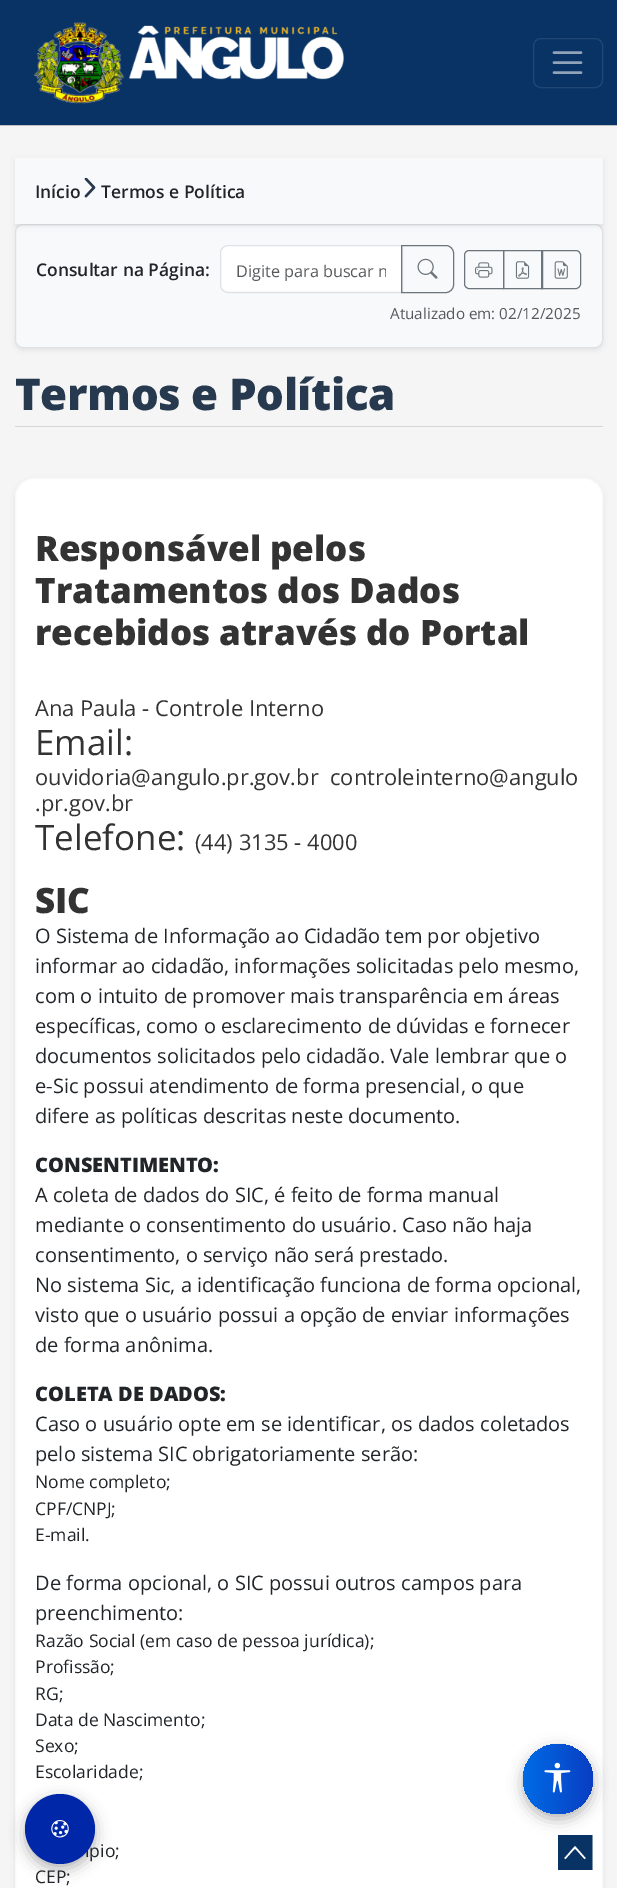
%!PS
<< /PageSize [617 1888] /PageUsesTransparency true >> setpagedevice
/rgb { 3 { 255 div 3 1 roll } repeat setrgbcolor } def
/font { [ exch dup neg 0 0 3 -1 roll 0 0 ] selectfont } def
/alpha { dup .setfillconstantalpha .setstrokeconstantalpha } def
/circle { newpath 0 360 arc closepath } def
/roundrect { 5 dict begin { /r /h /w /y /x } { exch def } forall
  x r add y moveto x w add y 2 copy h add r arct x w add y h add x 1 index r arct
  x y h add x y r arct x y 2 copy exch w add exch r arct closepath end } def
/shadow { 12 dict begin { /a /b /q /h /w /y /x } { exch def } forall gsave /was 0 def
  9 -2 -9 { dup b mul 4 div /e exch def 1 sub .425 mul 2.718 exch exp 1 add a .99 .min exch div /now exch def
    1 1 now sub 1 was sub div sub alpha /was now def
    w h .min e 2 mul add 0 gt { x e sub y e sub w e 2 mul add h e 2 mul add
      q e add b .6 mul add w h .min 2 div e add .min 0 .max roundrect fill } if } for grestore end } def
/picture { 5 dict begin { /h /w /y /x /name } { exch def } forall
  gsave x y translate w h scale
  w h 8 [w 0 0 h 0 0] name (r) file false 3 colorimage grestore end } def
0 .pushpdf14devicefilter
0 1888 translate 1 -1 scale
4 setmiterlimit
245 245 245 rgb
0 0 617 1888 rectfill
9 51 100 rgb
0 0 617 125 rectfill
191 191 191 rgb
0 125 617 1 rectfill
(img/1.rgb) 33 22 311 82 picture
34 71 116 rgb
533.5 38.5 69 49 7.5 roundrect stroke
144 163 185 rgb
2.5 setlinewidth
1 setlinecap
554 52.5 moveto 581 52.5 lineto 554 62.5 moveto 581 62.5 lineto 554 72.5 moveto 581 72.5 lineto stroke
0 0 0 rgb
15 226 588 124 8 2.5 0.07 shadow
248 249 250 rgb
15.5 224.5 587 123 7.5 roundrect gsave fill grestore
222 226 230 rgb
1 setlinewidth
0 setlinecap
stroke
0 0 0 rgb
15 160 588 66 0 2.5 0.07 shadow
248 249 250 rgb
15 158 588 66 rectfill
(img/2.rgb) 84 178 12 20 picture
255 255 255 rgb
227 246 moveto 401 246 lineto 401 291 lineto 227 291 lineto 223.5 291 221 288.5 221 285 curveto 221 252 lineto 221 248.5 223.5 246 227 246 curveto closepath fill
222 226 230 rgb
228 245.5 moveto 402.5 245.5 lineto 402.5 292.5 lineto 228 292.5 lineto 224 292.5 220.5 289 220.5 285 curveto 220.5 253 lineto 220.5 249 224 245.5 228 245.5 curveto closepath stroke
108 117 125 rgb
401.5 245.5 moveto 446 245.5 lineto 450 245.5 453.5 249 453.5 253 curveto 453.5 285 lineto 453.5 289 450 292.5 446 292.5 curveto 401.5 292.5 lineto closepath stroke
(img/3.rgb) 417 258 21 21 picture
469 250.5 moveto 503.5 250.5 lineto 503.5 288.5 lineto 469 288.5 lineto 466.5 288.5 464.5 286.5 464.5 284 curveto 464.5 255 lineto 464.5 252.5 466.5 250.5 469 250.5 curveto closepath stroke
(img/4.rgb) 475 262 18 16 picture
503.5 250.5 39 38 rectstroke
(img/5.rgb) 515 261 15 18 picture
541.5 250.5 moveto 576 250.5 lineto 578.5 250.5 580.5 252.5 580.5 255 curveto 580.5 284 lineto 580.5 286.5 578.5 288.5 576 288.5 curveto 541.5 288.5 lineto closepath stroke
(img/6.rgb) 554 261 14 18 picture
217 213 213 rgb
15 426 588 1 rectfill
0 0 0 rgb
15 480 588 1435 19 2.5 0.07 shadow
255 255 255 rgb
15.5 478.5 587 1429 18.5 roundrect gsave fill grestore
248 249 250 rgb
stroke
0 0 0 rgb
25 1799 70 70 35 7.5 0.3 shadow
523 1749 70 70 35 7.5 0.3 shadow
gsave 558 1779 35 circle clip newpath
<< /ShadingType 2 /ColorSpace /DeviceRGB /Coords [523 1779 593 1779] /Extend [true true] /Function << /FunctionType 3 /Domain [0 1] /Functions [<< /FunctionType 2 /Domain [0 1] /C0 [0 0.42 0.902] /C1 [0.008 0.376 0.867] /N 1 >> << /FunctionType 2 /Domain [0 1] /C0 [0.008 0.376 0.867] /C1 [0.02 0.333 0.831] /N 1 >> << /FunctionType 2 /Domain [0 1] /C0 [0.02 0.333 0.831] /C1 [0.027 0.286 0.796] /N 1 >> << /FunctionType 2 /Domain [0 1] /C0 [0.027 0.286 0.796] /C1 [0.035 0.243 0.761] /N 1 >>] /Bounds [0.25 0.5 0.75] /Encode [0 1 0 1 0 1 0 1] >> >> shfill grestore
(img/8.rgb) 544 1762 27 31 picture
gsave
558 1835 35 35 rectclip
9 51 100 rgb
557.5 1835 moveto 557.5 1870 lineto 592.5 1870 lineto 592.5 1835 lineto closepath 564 1858 moveto 575 1845.5 lineto 586 1858 lineto 584.5 1859.5 lineto 575 1849 lineto 565.5 1859.5 lineto closepath eofill
grestore
/OpenSans-SemiBold 17.5 font
33 37 41 rgb
[
  [(Início) 35 198]
  [(Termos e Política) 101 198]
  [(Consultar na Página:) 36 276]
] { aload pop moveto show } forall
gsave
236 259 150 22 rectclip
/OpenSans-Regular 16.25 font
87 90 93 rgb
236 277 moveto (Digite para buscar n) show
grestore
/OpenSans-Regular 15.25 font
87 90 93 rgb
390 319 moveto (Atualizado em: 02/12/2025) show
/OpenSans-ExtraBold 43.75 font
39 57 78 rgb
15 410 moveto -0.4 0 (Termos e Política) ashow
/OpenSans-ExtraBold 35 font
51 51 51 rgb
[
  [(Responsável pelos) 35 561]
  [(Tratamentos dos Dados) 35 603]
  [(recebidos através do Portal) 35 645]
] { aload pop moveto show } forall
/OpenSans-Regular 21.9 font
35 716 moveto (Ana Paula - Controle Interno) show
/OpenSans-Regular 35 font
35 755 moveto (Email:) show
/OpenSans-Regular 21.9 font
35 785 moveto (ouvidoria@angulo.pr.gov.br  controleinterno@angulo) show
35 811 moveto (.pr.gov.br) show
/OpenSans-Regular 35 font
35 850 moveto (Telefone:) show
/OpenSans-Regular 21.9 font
195 850 moveto (\(44\) 3135 - 4000) show
/OpenSans-ExtraBold 35 font
35 913 moveto (SIC) show
/OpenSans-Regular 20 font
33 37 41 rgb
[
  [(O Sistema de Informação ao Cidadão tem por objetivo) 35 943]
  [(informar ao cidadão, informações solicitadas pelo mesmo,) 35 973]
  [(com o intuito de promover mais transparência em áreas) 35 1003]
  [(específicas, como o esclarecimento de dúvidas e fornecer) 35 1033]
  [(documentos solicitados pelo cidadão. Vale lembrar que o) 35 1063]
  [(e-Sic possui atendimento de forma presencial, o que) 35 1093]
  [(difere as políticas descritas neste documento.) 35 1123]
] { aload pop moveto show } forall
/OpenSans-ExtraBold 20 font
35 1172 moveto (CONSENTIMENTO:) show
/OpenSans-Regular 20 font
[
  [(A coleta de dados do SIC, é feito de forma manual) 35 1202]
  [(mediante o consentimento do usuário. Caso não haja) 35 1232]
  [(consentimento, o serviço não será prestado.) 35 1262]
  [(No sistema Sic, a identificação funciona de forma opcional,) 35 1292]
  [(visto que o usuário possui a opção de enviar informações) 35 1322]
  [(de forma anônima.) 35 1352]
] { aload pop moveto show } forall
/OpenSans-ExtraBold 20 font
35 1401 moveto (COLETA DE DADOS:) show
/OpenSans-Regular 20 font
35 1431 moveto (Caso o usuário opte em se identificar, os dados coletados) show
35 1461 moveto (pelo sistema SIC obrigatoriamente serão:) show
/OpenSans-Regular 17.5 font
[
  [(Nome completo;) 35 1488]
  [(CPF/CNPJ;) 35 1515]
  [(E-mail.) 35 1541]
] { aload pop moveto show } forall
/OpenSans-Regular 20 font
35 1590 moveto (De forma opcional, o SIC possui outros campos para) show
35 1620 moveto (preenchimento:) show
/OpenSans-Regular 17.5 font
[
  [(Razão Social \(em caso de pessoa jurídica\);) 35 1647]
  [(Profissão;) 35 1673]
  [(RG;) 35 1700]
  [(Data de Nascimento;) 35 1726]
  [(Sexo;) 35 1752]
  [(Escolaridade;) 35 1778]
  [(ípio;) 85 1857]
  [(CEP;) 35 1883]
] { aload pop moveto show } forall
0 39 168 rgb
60 1829 35 circle fill
(img/7.rgb) 51 1820 18 18 picture
.poppdf14devicefilter showpage
